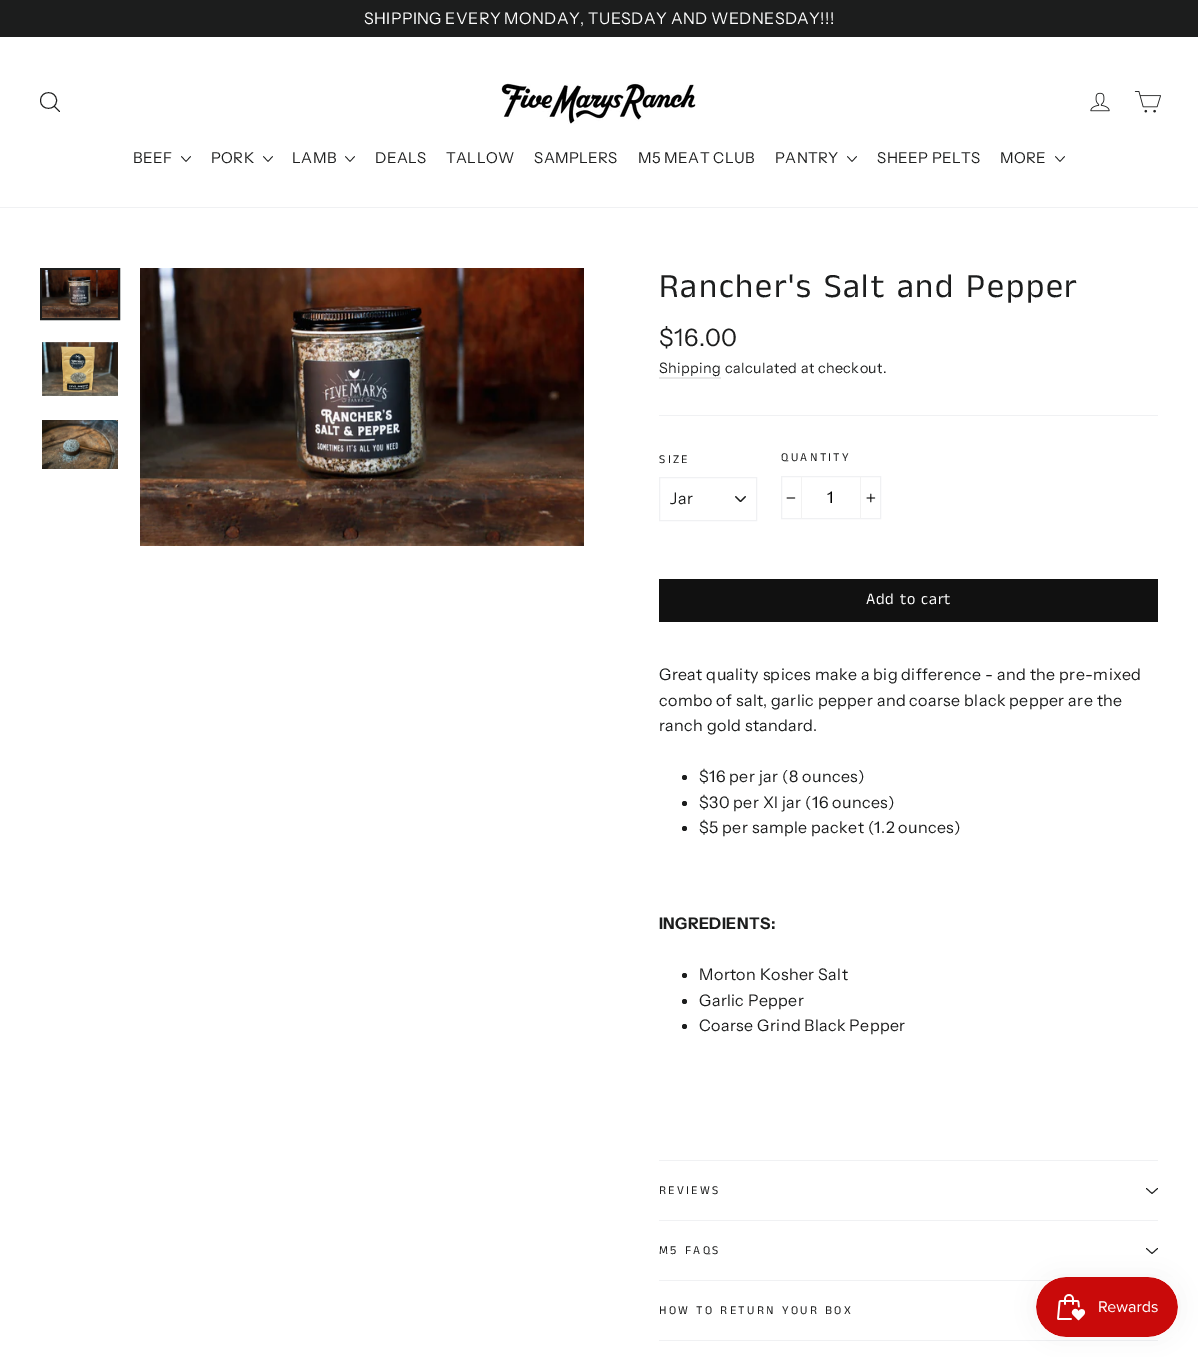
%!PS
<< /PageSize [1198 1357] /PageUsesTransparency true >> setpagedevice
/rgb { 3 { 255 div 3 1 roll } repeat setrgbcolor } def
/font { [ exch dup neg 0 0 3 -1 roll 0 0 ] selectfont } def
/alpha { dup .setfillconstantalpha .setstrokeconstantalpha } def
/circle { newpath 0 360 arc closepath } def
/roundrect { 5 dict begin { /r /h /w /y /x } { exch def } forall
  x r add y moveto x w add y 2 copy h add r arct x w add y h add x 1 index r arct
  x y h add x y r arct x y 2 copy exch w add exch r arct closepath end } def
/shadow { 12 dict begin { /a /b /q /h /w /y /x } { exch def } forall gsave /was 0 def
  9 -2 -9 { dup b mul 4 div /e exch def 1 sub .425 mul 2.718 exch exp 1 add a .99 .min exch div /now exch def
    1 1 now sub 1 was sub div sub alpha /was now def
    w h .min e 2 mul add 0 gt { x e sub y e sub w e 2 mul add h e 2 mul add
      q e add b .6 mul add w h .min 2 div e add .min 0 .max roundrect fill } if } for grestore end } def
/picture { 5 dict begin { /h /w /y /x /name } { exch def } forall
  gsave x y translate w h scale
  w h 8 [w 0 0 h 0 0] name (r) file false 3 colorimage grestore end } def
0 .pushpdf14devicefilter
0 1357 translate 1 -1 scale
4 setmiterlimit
255 255 255 rgb
0 0 1198 1357 rectfill
28 29 29 rgb
0 0 1198 37 rectfill
240 241 243 rgb
0 207 1198 1 rectfill
28 29 29 rgb
0.9 setlinewidth
1 setlinecap
1 setlinejoin
56.5 100.5 moveto 56.5 111 40.5 111 40.5 100.5 curveto 40.5 90 56.5 90 56.5 100.5 curveto closepath 59.5 111.5 moveto 54.5 106.5 lineto stroke
(img/1.rgb) 501 82 198 42 picture
(img/2.rgb) 1090 92 20 20 picture
(img/3.rgb) 1134 91 27 22 picture
0.7 setlinewidth
181.5 156.5 moveto 186 161.5 lineto 190.5 156.5 lineto stroke
263.5 156.5 moveto 268 161.5 lineto 272.5 156.5 lineto stroke
345.5 156.5 moveto 350 161.5 lineto 354.5 156.5 lineto stroke
847.5 156.5 moveto 852 161.5 lineto 856.5 156.5 lineto stroke
1055.5 156.5 moveto 1060 161.5 lineto 1064.5 156.5 lineto stroke
2 setlinewidth
0 setlinecap
0 setlinejoin
41 269 78 50 rectstroke
(img/4.rgb) 42 270 76 48 picture
(img/5.rgb) 42 342 76 54 picture
(img/6.rgb) 42 420 76 49 picture
(img/7.rgb) 140 268 444 278 picture
232 232 232 rgb
659 377 62 2 rectfill
240 241 243 rgb
659 415 499 1 rectfill
(img/8.rgb) 735 496 11 6 picture
1 setlinewidth
659.5 477.5 97 43 rectstroke
781.5 476.5 99 42 rectstroke
242 242 242 rgb
801 476 1 43 rectfill
(img/9.rgb) 786 497 10 2 picture
860 476 1 43 rectfill
(img/10.rgb) 866 493 10 10 picture
17 17 17 rgb
659 579 499 43 rectfill
28 29 29 rgb
684.5 777.5 2.5 circle fill
684.5 803.5 2.5 circle fill
684.5 828.5 2.5 circle fill
684.5 975.5 2.5 circle fill
684.5 1001.5 2.5 circle fill
684.5 1026.5 2.5 circle fill
240 241 243 rgb
659 1160 499 1 rectfill
28 29 29 rgb
0.9 setlinewidth
1 setlinecap
1 setlinejoin
1146.5 1188.5 moveto 1152 1193.5 lineto 1157.5 1188.5 lineto stroke
240 241 243 rgb
659 1220 499 1 rectfill
28 29 29 rgb
1146.5 1248.5 moveto 1152 1253.5 lineto 1157.5 1248.5 lineto stroke
240 241 243 rgb
659 1280 395 1 rectfill
659 1340 499 1 rectfill
0 0 0 rgb
1036 1277 142 60 30 12.5 0.05 shadow
(img/11.rgb) 1036 1277 142 60 picture
/InstrumentSans-Regular 16 font
255 255 255 rgb
364 24 moveto 0.4 0 (SHIPPING EVERY MONDAY, TUESDAY AND WEDNESDAY!!!) ashow
/InstrumentSans-Regular 15 font
28 29 29 rgb
133 163 moveto 0.4 0 (BEEF) ashow
211 163 moveto 0.4 0 (PORK) ashow
292 163 moveto 0.4 0 (LAMB) ashow
375 163 moveto 0.4 0 (DEALS) ashow
446 163 moveto 0.4 0 (TALLOW) ashow
534 163 moveto 0.4 0 (SAMPLERS) ashow
638 163 moveto 0.4 0 (M5 MEAT CLUB) ashow
775 163 moveto 0.4 0 (PANTRY) ashow
877 163 moveto 0.4 0 (SHEEP PELTS) ashow
1000 163 moveto 0.4 0 (MORE) ashow
/AnekTamil-Regular 34 font
659 297 moveto 1.7 0 (Rancher's Salt and Pepper) ashow
/InstrumentSans-Regular 24 font
659 346 moveto 0.4 0 ($16.00) ashow
/InstrumentSans-Regular 14.4 font
659 373 moveto 0.4 0 (Shipping) ashow
725 373 moveto 0.4 0 (calculated at checkout.) ashow
/AnekTamil-Regular 12 font
659 463 moveto 2.4 0 (SIZE) ashow
/InstrumentSans-Regular 16 font
670 504 moveto 0.4 0 (Jar) ashow
/AnekTamil-Regular 12 font
781 461 moveto 2.4 0 (QUANTITY) ashow
/InstrumentSans-Regular 16 font
0 0 0 rgb
827 503 moveto 0.4 0 (1) ashow
/AnekTamil-Regular 16 font
255 255 255 rgb
866 604 moveto 0.75 0 (Add to cart) ashow
/InstrumentSans-Regular 16 font
28 29 29 rgb
659 680 moveto 0.4 0 (Great quality spices make a big difference - and the pre-mixed) ashow
659 706 moveto 0.4 0 (combo of salt, garlic pepper and coarse black pepper are the) ashow
659 731 moveto 0.4 0 (ranch gold standard.) ashow
699 782 moveto 0.4 0 ($16 per jar \(8 ounces\)) ashow
699 808 moveto 0.4 0 ($30 per Xl jar \(16 ounces\)) ashow
699 833 moveto 0.4 0 ($5 per sample packet \(1.2 ounces\)) ashow
/InstrumentSans-Bold 16 font
659 929 moveto 0.4 0 (INGREDIENTS:) ashow
/InstrumentSans-Regular 16 font
699 980 moveto 0.4 0 (Morton Kosher Salt) ashow
699 1006 moveto 0.4 0 (Garlic Pepper) ashow
699 1031 moveto 0.4 0 (Coarse Grind Black Pepper) ashow
/AnekTamil-Regular 12 font
659 1194 moveto 2.4 0 (REVIEWS) ashow
659 1254 moveto 2.4 0 (M5 FAQS) ashow
659 1314 moveto 2.4 0 (HOW TO RETURN YOUR BOX) ashow
.poppdf14devicefilter showpage
